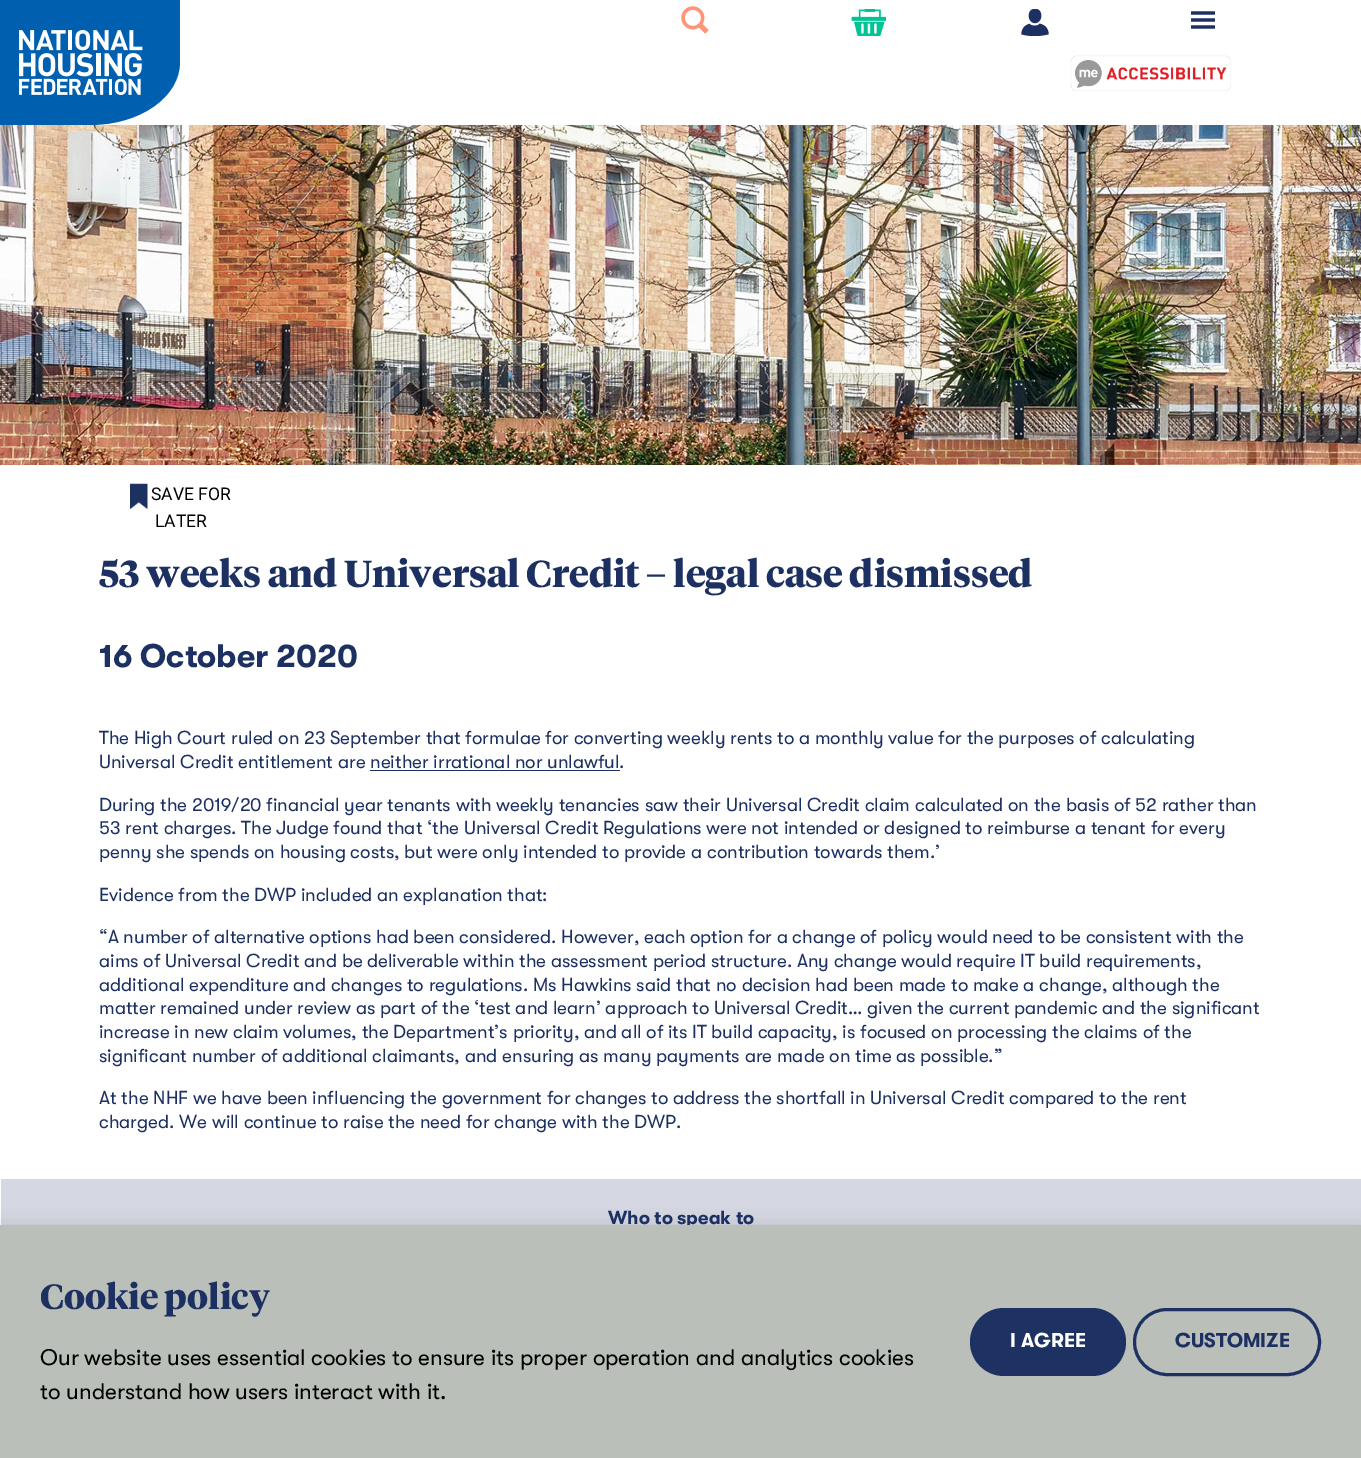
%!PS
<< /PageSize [1361 1458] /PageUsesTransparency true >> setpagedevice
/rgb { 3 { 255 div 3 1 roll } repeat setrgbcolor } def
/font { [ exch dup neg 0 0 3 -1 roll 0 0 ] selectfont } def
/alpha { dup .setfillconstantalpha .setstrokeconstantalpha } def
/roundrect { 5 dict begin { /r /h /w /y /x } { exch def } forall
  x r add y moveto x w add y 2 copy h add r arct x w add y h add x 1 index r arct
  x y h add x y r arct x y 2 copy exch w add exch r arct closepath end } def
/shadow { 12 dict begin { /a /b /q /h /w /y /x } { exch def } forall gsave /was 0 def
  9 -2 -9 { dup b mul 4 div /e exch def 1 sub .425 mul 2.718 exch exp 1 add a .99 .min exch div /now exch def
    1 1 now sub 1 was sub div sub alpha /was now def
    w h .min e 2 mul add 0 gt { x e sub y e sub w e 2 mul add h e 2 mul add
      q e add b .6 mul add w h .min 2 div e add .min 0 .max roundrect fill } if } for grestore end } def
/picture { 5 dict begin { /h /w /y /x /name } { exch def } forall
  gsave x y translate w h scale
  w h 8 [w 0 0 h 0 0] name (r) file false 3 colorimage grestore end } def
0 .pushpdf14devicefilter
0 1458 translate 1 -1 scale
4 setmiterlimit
255 255 255 rgb
0 0 1361 1458 rectfill
0 96 175 rgb
0 0 moveto 180 0 lineto 180 62 lineto 180 97 140 125 90 125 curveto 0 125 lineto closepath fill
(img/1.rgb) 19 30 124 65 picture
(img/2.rgb) 681 6 28 28 picture
(img/3.rgb) 851 9 35 27 picture
(img/4.rgb) 1021 9 28 27 picture
29 48 98 rgb
3.3 setlinewidth
1191 27 moveto 1215 27 lineto 1191 20 moveto 1215 20 lineto 1191 13 moveto 1215 13 lineto stroke
(img/5.rgb) 1070 55 161 36 picture
(img/6.rgb) 0 125 1361 340 picture
(img/7.rgb) 130 483 18 26 picture
370 770 250 1 rectfill
213 216 226 rgb
1 1179 1360 46 rectfill
2 2 3 rgb
0 1233 1361 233 0 11.5 0.28 shadow
/Roboto-Regular 17.5 font
0 0 0 rgb
151 500 moveto (SAVE FOR) show
155 527 moveto (LATER) show
/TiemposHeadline-Bold 37.5 font
29 48 98 rgb
99 587 moveto (53 weeks and Universal Credit – legal case dismissed) show
/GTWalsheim-Bold 32.5 font
99 667 moveto (16 October 2020) show
/GTWalsheim-Regular 18.75 font
[
  [(The High Court ruled on 23 September that formulae for converting weekly rents to a monthly value for the purposes of calculating) 99 744]
  [(Universal Credit entitlement are neither irrational nor unlawful.) 99 768]
  [(During the 2019/20 financial year tenants with weekly tenancies saw their Universal Credit claim calculated on the basis of 52 rather than) 99 811]
  [(53 rent charges. The Judge found that ‘the Universal Credit Regulations were not intended or designed to reimburse a tenant for every) 99 834]
  [(penny she spends on housing costs, but were only intended to provide a contribution towards them.’) 99 858]
  [(Evidence from the DWP included an explanation that:) 99 901]
  [(“A number of alternative options had been considered. However, each option for a change of policy would need to be consistent with the) 99 943]
  [(aims of Universal Credit and be deliverable within the assessment period structure. Any change would require IT build requirements,) 99 967]
  [(additional expenditure and changes to regulations. Ms Hawkins said that no decision had been made to make a change, although the) 99 991]
  [(matter remained under review as part of the ‘test and learn’ approach to Universal Credit… given the current pandemic and the significant) 99 1014]
  [(increase in new claim volumes, the Department’s priority, and all of its IT build capacity, is focused on processing the claims of the) 99 1038]
  [(significant number of additional claimants, and ensuring as many payments are made on time as possible.”) 99 1062]
  [(At the NHF we have been influencing the government for changes to address the shortfall in Universal Credit compared to the rent) 99 1104]
  [(charged. We will continue to raise the need for change with the DWP.) 99 1128]
] { aload pop moveto show } forall
/GTWalsheim-Bold 18.75 font
608 1224 moveto (Who to speak to) show
186 191 186 rgb
0 1225 1361 233 rectfill
/TiemposHeadline-Bold 35 font
29 48 98 rgb
40 1309 moveto (Cookie policy) show
/GTWalsheim-Regular 22.5 font
0 0 0 rgb
40 1365 moveto (Our website uses essential cookies to ensure its proper operation and analytics cookies) show
40 1399 moveto (to understand how users interact with it.) show
29 49 99 rgb
970 1308 156 68 34 roundrect fill
/GTWalsheim-Bold 20 font
255 255 255 rgb
1010 1347 moveto (I AGREE) show
29 49 99 rgb
3 setlinewidth
1134.5 1309.5 185 65 32.5 roundrect stroke
29 48 98 rgb
1175 1347 moveto (CUSTOMIZE) show
.poppdf14devicefilter showpage
